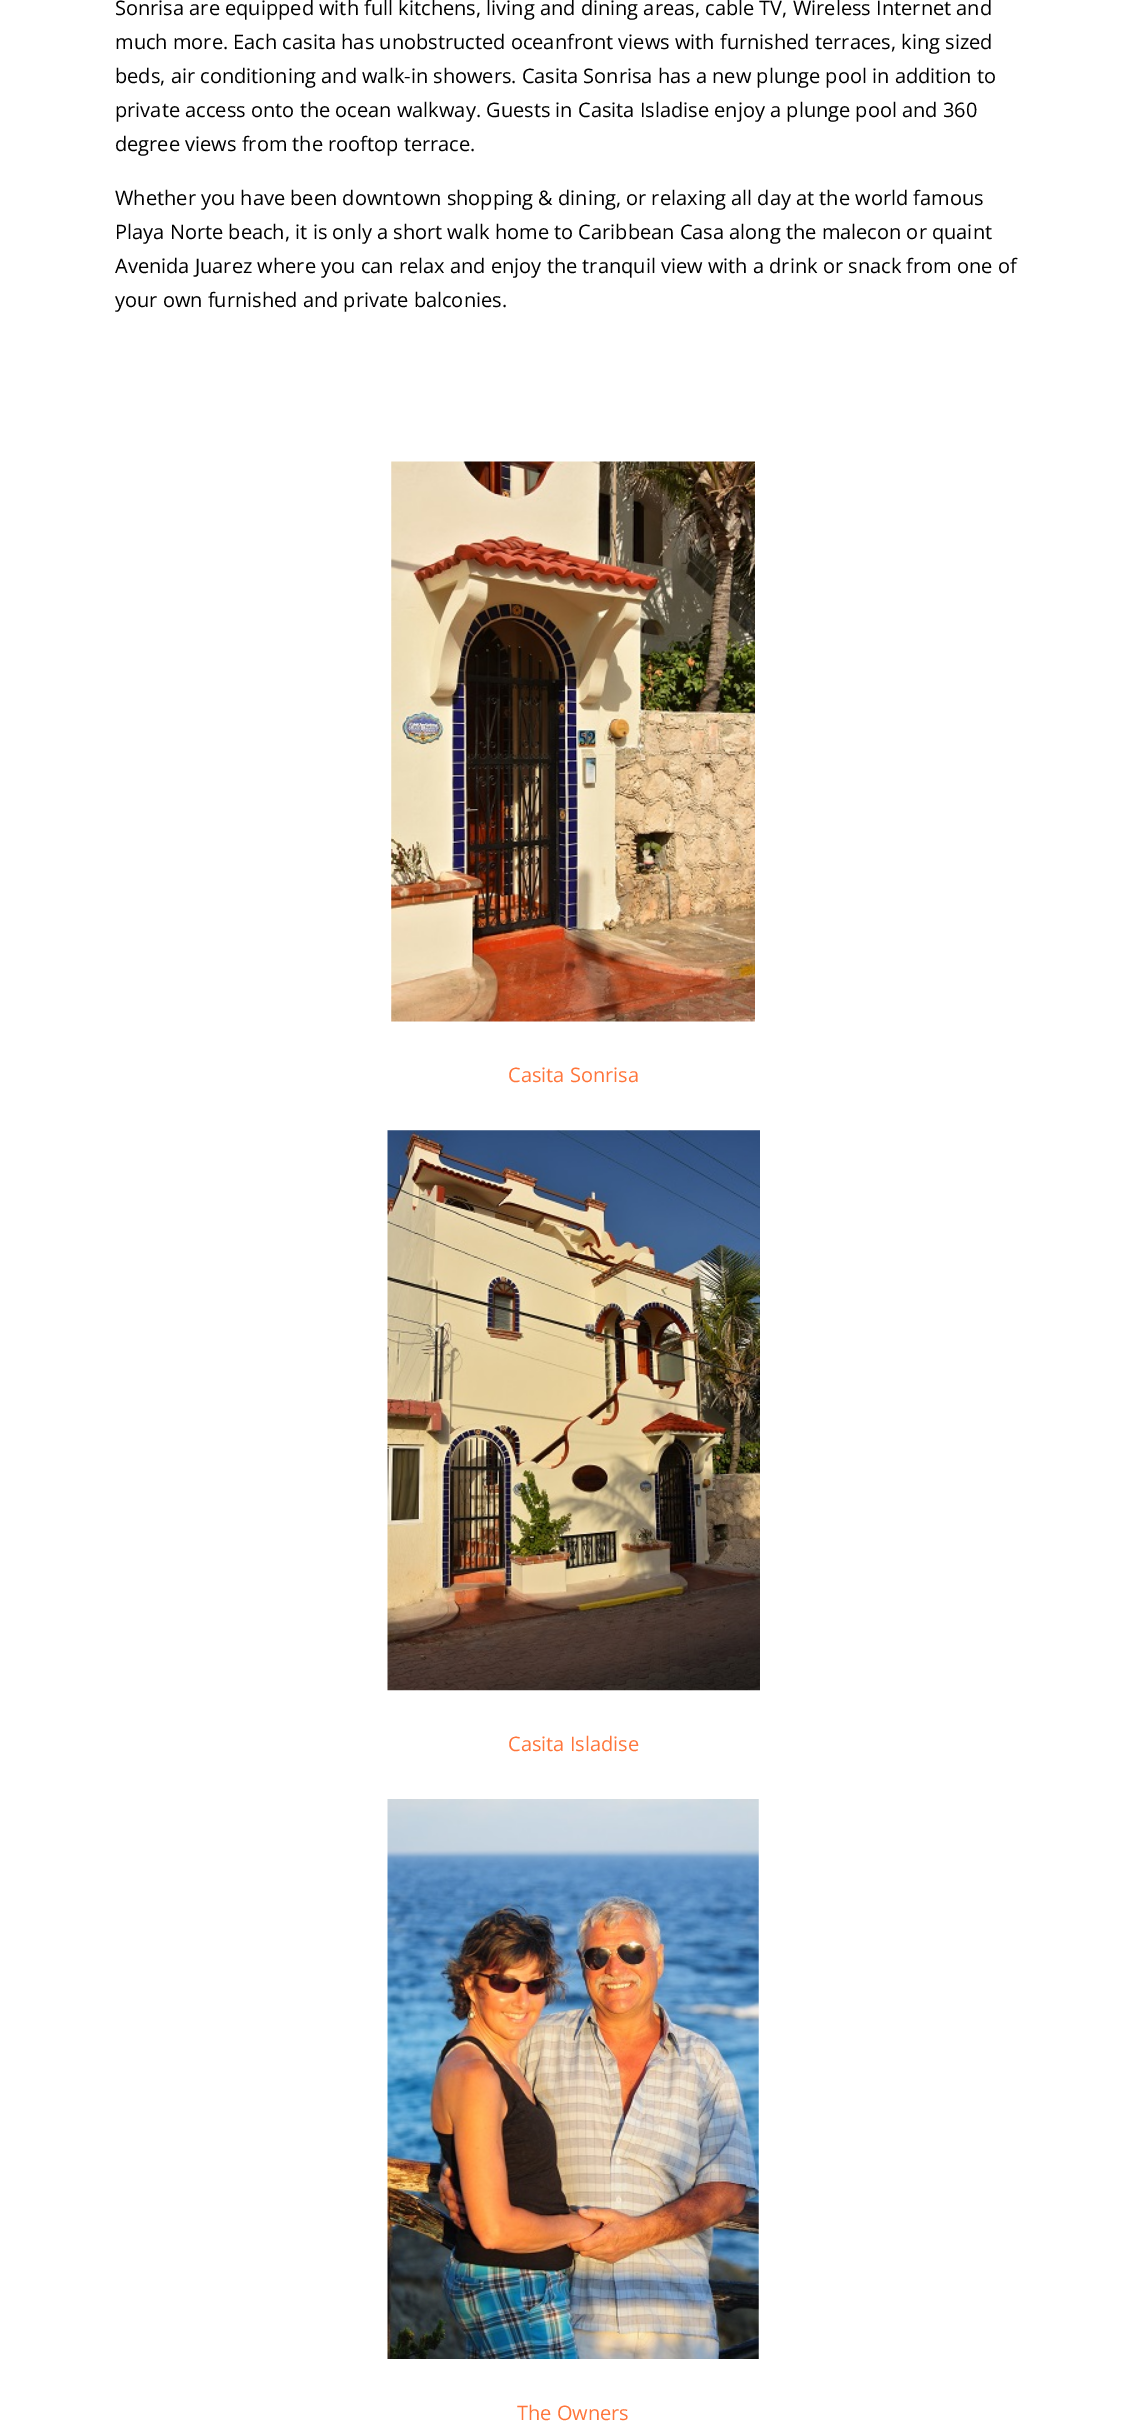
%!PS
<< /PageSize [1146 2434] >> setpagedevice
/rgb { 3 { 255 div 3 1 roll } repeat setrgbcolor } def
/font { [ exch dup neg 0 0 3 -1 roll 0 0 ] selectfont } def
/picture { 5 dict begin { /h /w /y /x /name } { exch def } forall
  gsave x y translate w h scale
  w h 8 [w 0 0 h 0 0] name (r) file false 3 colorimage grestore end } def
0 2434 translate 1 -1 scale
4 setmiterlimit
255 255 255 rgb
0 0 1146 2434 rectfill
(img/1.rgb) 391 461 364 561 picture
(img/2.rgb) 387 1130 373 561 picture
(img/3.rgb) 387 1799 372 560 picture
/OpenSans-Regular 20 font
0 0 0 rgb
[
  [(Sonrisa are equipped with full kitchens, living and dining areas, cable TV, Wireless Internet and) 115 15]
  [(much more. Each casita has unobstructed oceanfront views with furnished terraces, king sized) 115 49]
  [(beds, air conditioning and walk-in showers. Casita Sonrisa has a new plunge pool in addition to) 115 83]
  [(private access onto the ocean walkway. Guests in Casita Isladise enjoy a plunge pool and 360) 115 117]
  [(degree views from the rooftop terrace.) 115 151]
  [(Whether you have been downtown shopping & dining, or relaxing all day at the world famous) 115 205]
  [(Playa Norte beach, it is only a short walk home to Caribbean Casa along the malecon or quaint) 115 239]
  [(Avenida Juarez where you can relax and enjoy the tranquil view with a drink or snack from one of) 115 273]
  [(your own furnished and private balconies.) 115 307]
] { aload pop moveto show } forall
255 117 58 rgb
[
  [(Casita Sonrisa) 508 1082]
  [(Casita Isladise) 508 1751]
  [(The Owners) 517 2420]
] { aload pop moveto show } forall
showpage
